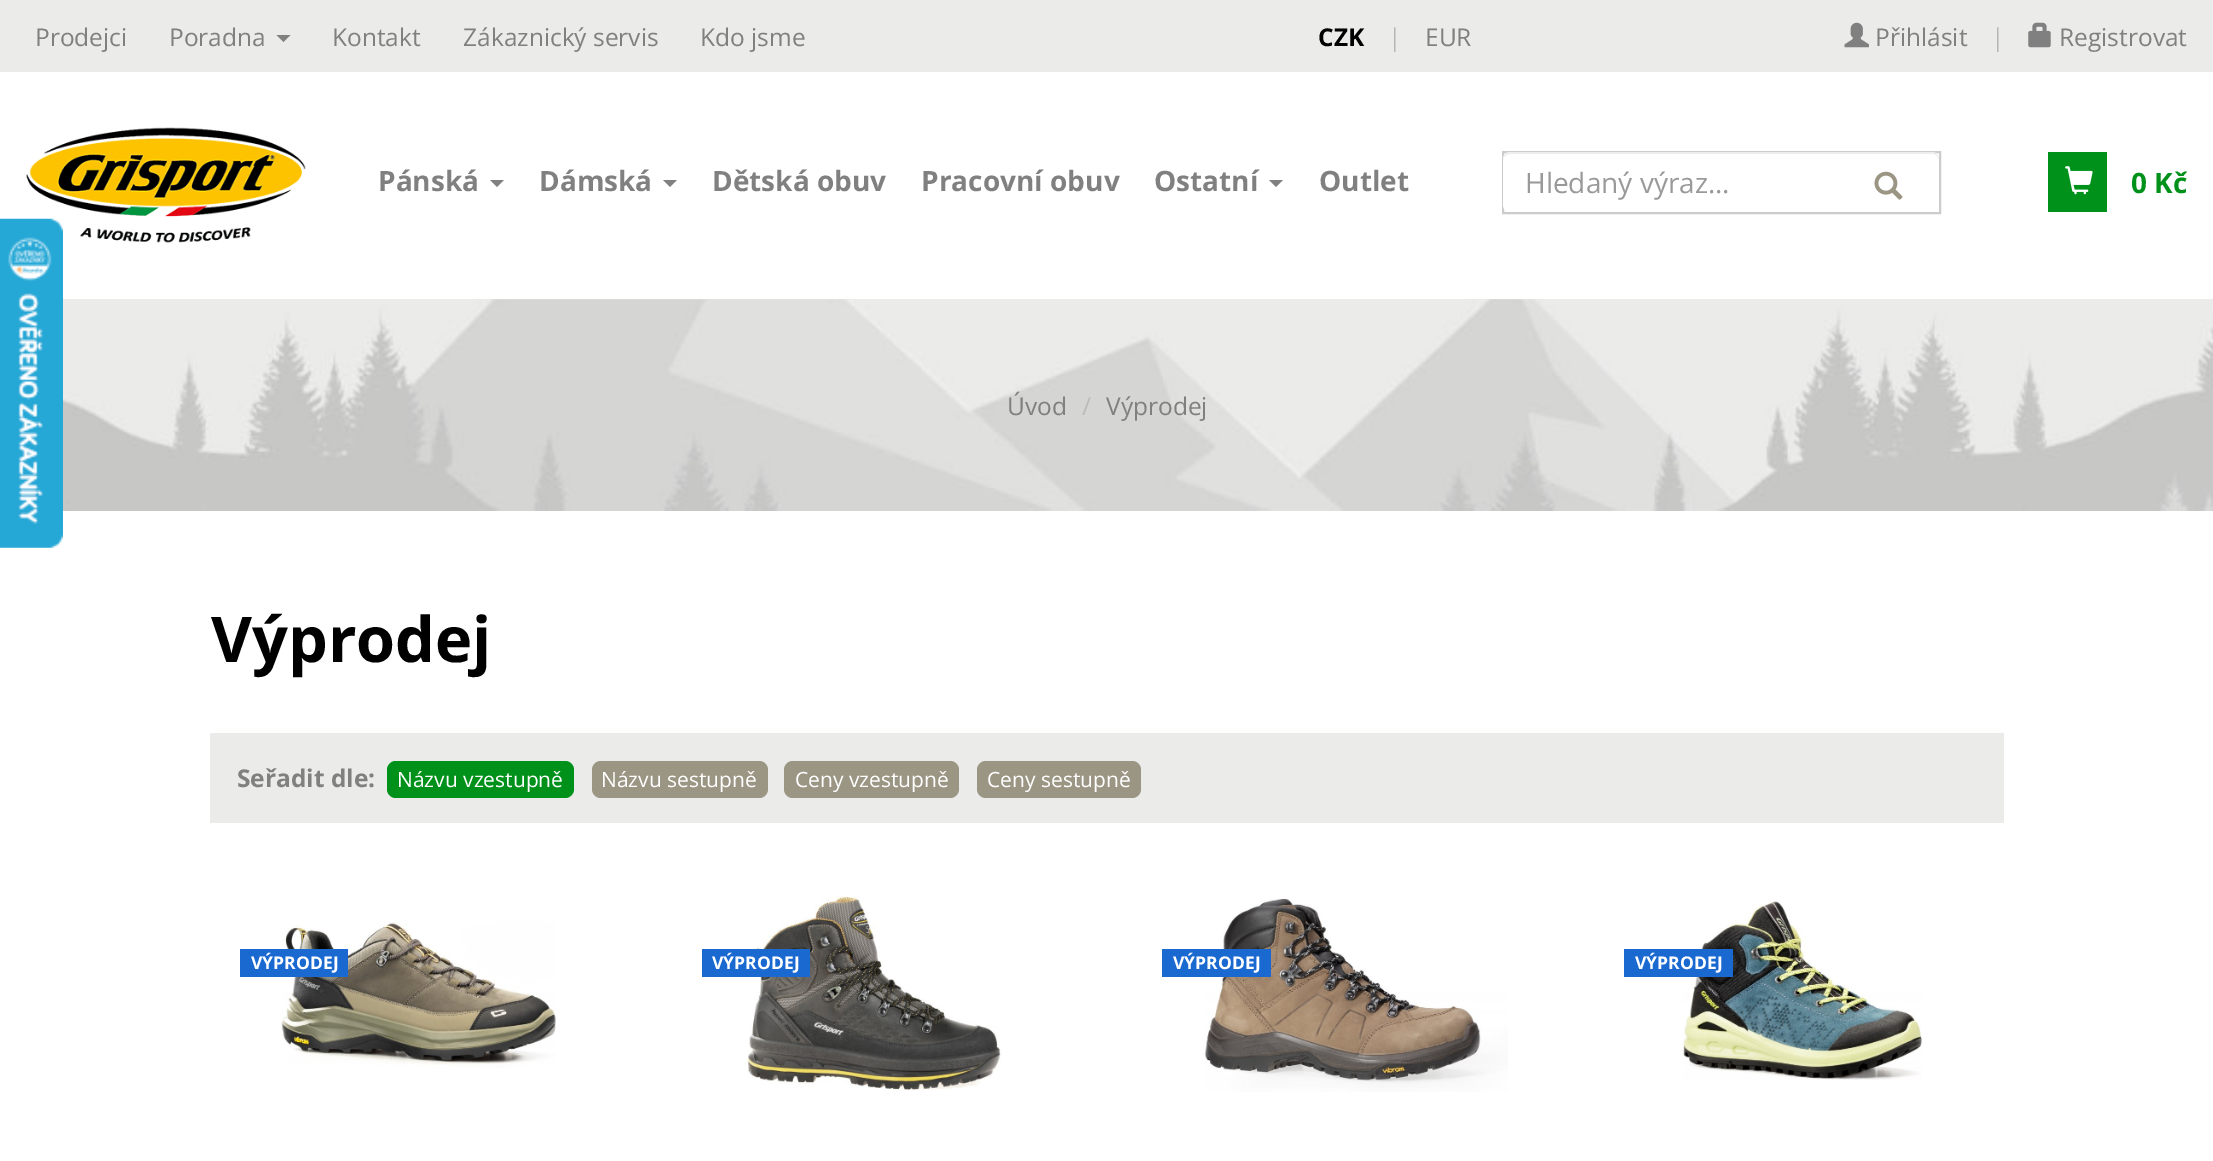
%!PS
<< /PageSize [2213 1161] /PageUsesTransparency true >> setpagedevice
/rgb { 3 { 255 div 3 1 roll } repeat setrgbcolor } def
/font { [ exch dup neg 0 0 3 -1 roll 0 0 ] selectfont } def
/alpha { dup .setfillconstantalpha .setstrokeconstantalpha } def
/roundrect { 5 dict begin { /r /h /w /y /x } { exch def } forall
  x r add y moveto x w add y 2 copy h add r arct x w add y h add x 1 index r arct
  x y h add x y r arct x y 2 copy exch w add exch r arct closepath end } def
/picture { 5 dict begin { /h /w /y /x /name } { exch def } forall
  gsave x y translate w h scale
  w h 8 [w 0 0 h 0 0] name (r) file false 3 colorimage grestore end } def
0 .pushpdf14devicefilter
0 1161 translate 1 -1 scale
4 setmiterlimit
255 255 255 rgb
0 0 2213 1161 rectfill
235 235 234 rgb
0 0 2213 72 rectfill
128 128 128 rgb
276.5 35 moveto 290.5 35 lineto 283.5 42 lineto closepath fill
(img/1.rgb) 1844 22 25 26 picture
(img/2.rgb) 2028 22 23 26 picture
(img/3.rgb) 26 127 280 116 picture
490 180 moveto 504 180 lineto 497 187 lineto closepath fill
663 180 moveto 677 180 lineto 670 187 lineto closepath fill
1269 180 moveto 1283 180 lineto 1276 187 lineto closepath fill
204 204 204 rgb
2 setlinewidth
1503 152 437 61 rectstroke
255 255 255 rgb
1503 152 436 60 7 roundrect fill
0.07 alpha
0 0 0 rgb
1510 154 moveto 1932 154 lineto 1936 154 1939 157 1939 161 curveto 1939 157 1937 152 1932 152 curveto 1510 152 lineto 1505 152 1503 157 1503 161 curveto 1503 157 1506 154 1510 154 curveto closepath fill
1 alpha
(img/4.rgb) 1874 171 29 29 picture
0 145 26 rgb
2048 152 59 60 rectfill
(img/5.rgb) 2065 166 28 29 picture
(img/6.rgb) 0 218 63 330 picture
(img/7.rgb) 63 299 2150 212 picture
235 235 234 rgb
210 733 1794 90 rectfill
0 145 26 rgb
387 761 187 37 9 roundrect fill
155 149 131 rgb
592 761 176 37 9 roundrect fill
784 761 175 37 9 roundrect fill
977 761 164 37 9 roundrect fill
(img/8.rgb) 281 921 275 147 picture
26 105 209 rgb
240 949 108 28 rectfill
(img/9.rgb) 747 896 255 195 picture
702 949 108 28 rectfill
(img/10.rgb) 1204 898 304 194 picture
1162 949 109 28 rectfill
(img/11.rgb) 1682 900 240 180 picture
1624 949 109 28 rectfill
/OpenSans-Regular 24.5 font
128 128 128 rgb
[
  [(Prodejci) 35 46]
  [(Poradna) 169 46]
  [(Kontakt) 332 46]
  [(Zákaznický servis) 463 46]
  [(Kdo jsme) 700 46]
] { aload pop moveto show } forall
/OpenSans-Bold 24.5 font
0 0 0 rgb
1318 46 moveto (CZK) show
/OpenSans-Regular 24.5 font
182 182 181 rgb
1388 46 moveto (|) show
128 128 128 rgb
1425 46 moveto (EUR) show
1875 46 moveto (Přihlásit) show
182 182 181 rgb
1991 46 moveto (|) show
128 128 128 rgb
2059 46 moveto (Registrovat) show
/OpenSans-Bold 28 font
[
  [(Pánská) 378 191]
  [(Dámská) 539 191]
  [(Dětská obuv) 712 191]
  [(Pracovní obuv) 921 191]
  [(Ostatní) 1154 191]
  [(Outlet) 1319 191]
] { aload pop moveto show } forall
/OpenSans-Regular 28 font
153 153 153 rgb
1525 193 moveto (Hledaný výraz...) show
/OpenSans-Bold 28 font
0 145 26 rgb
2131 193 moveto (0 Kč) show
/OpenSans-Regular 24.5 font
128 128 128 rgb
1007 415 moveto (Úvod) show
187 187 187 rgb
1082 415 moveto (/) show
128 128 128 rgb
1106 415 moveto (Výprodej) show
/OpenSans-Bold 63 font
0 0 0 rgb
211 662 moveto (Výprodej) show
/OpenSans-Bold 24.5 font
128 128 128 rgb
237 787 moveto (Seřadit dle:) show
/OpenSans-Regular 21 font
255 255 255 rgb
[
  [(Názvu vzestupně) 397 787]
  [(Názvu sestupně) 601 787]
  [(Ceny vzestupně) 795 787]
  [(Ceny sestupně) 987 787]
] { aload pop moveto show } forall
/OpenSans-Bold 17.5 font
[
  [(VÝPRODEJ) 251 969]
  [(VÝPRODEJ) 712 969]
  [(VÝPRODEJ) 1173 969]
  [(VÝPRODEJ) 1635 969]
] { aload pop moveto show } forall
.poppdf14devicefilter showpage
